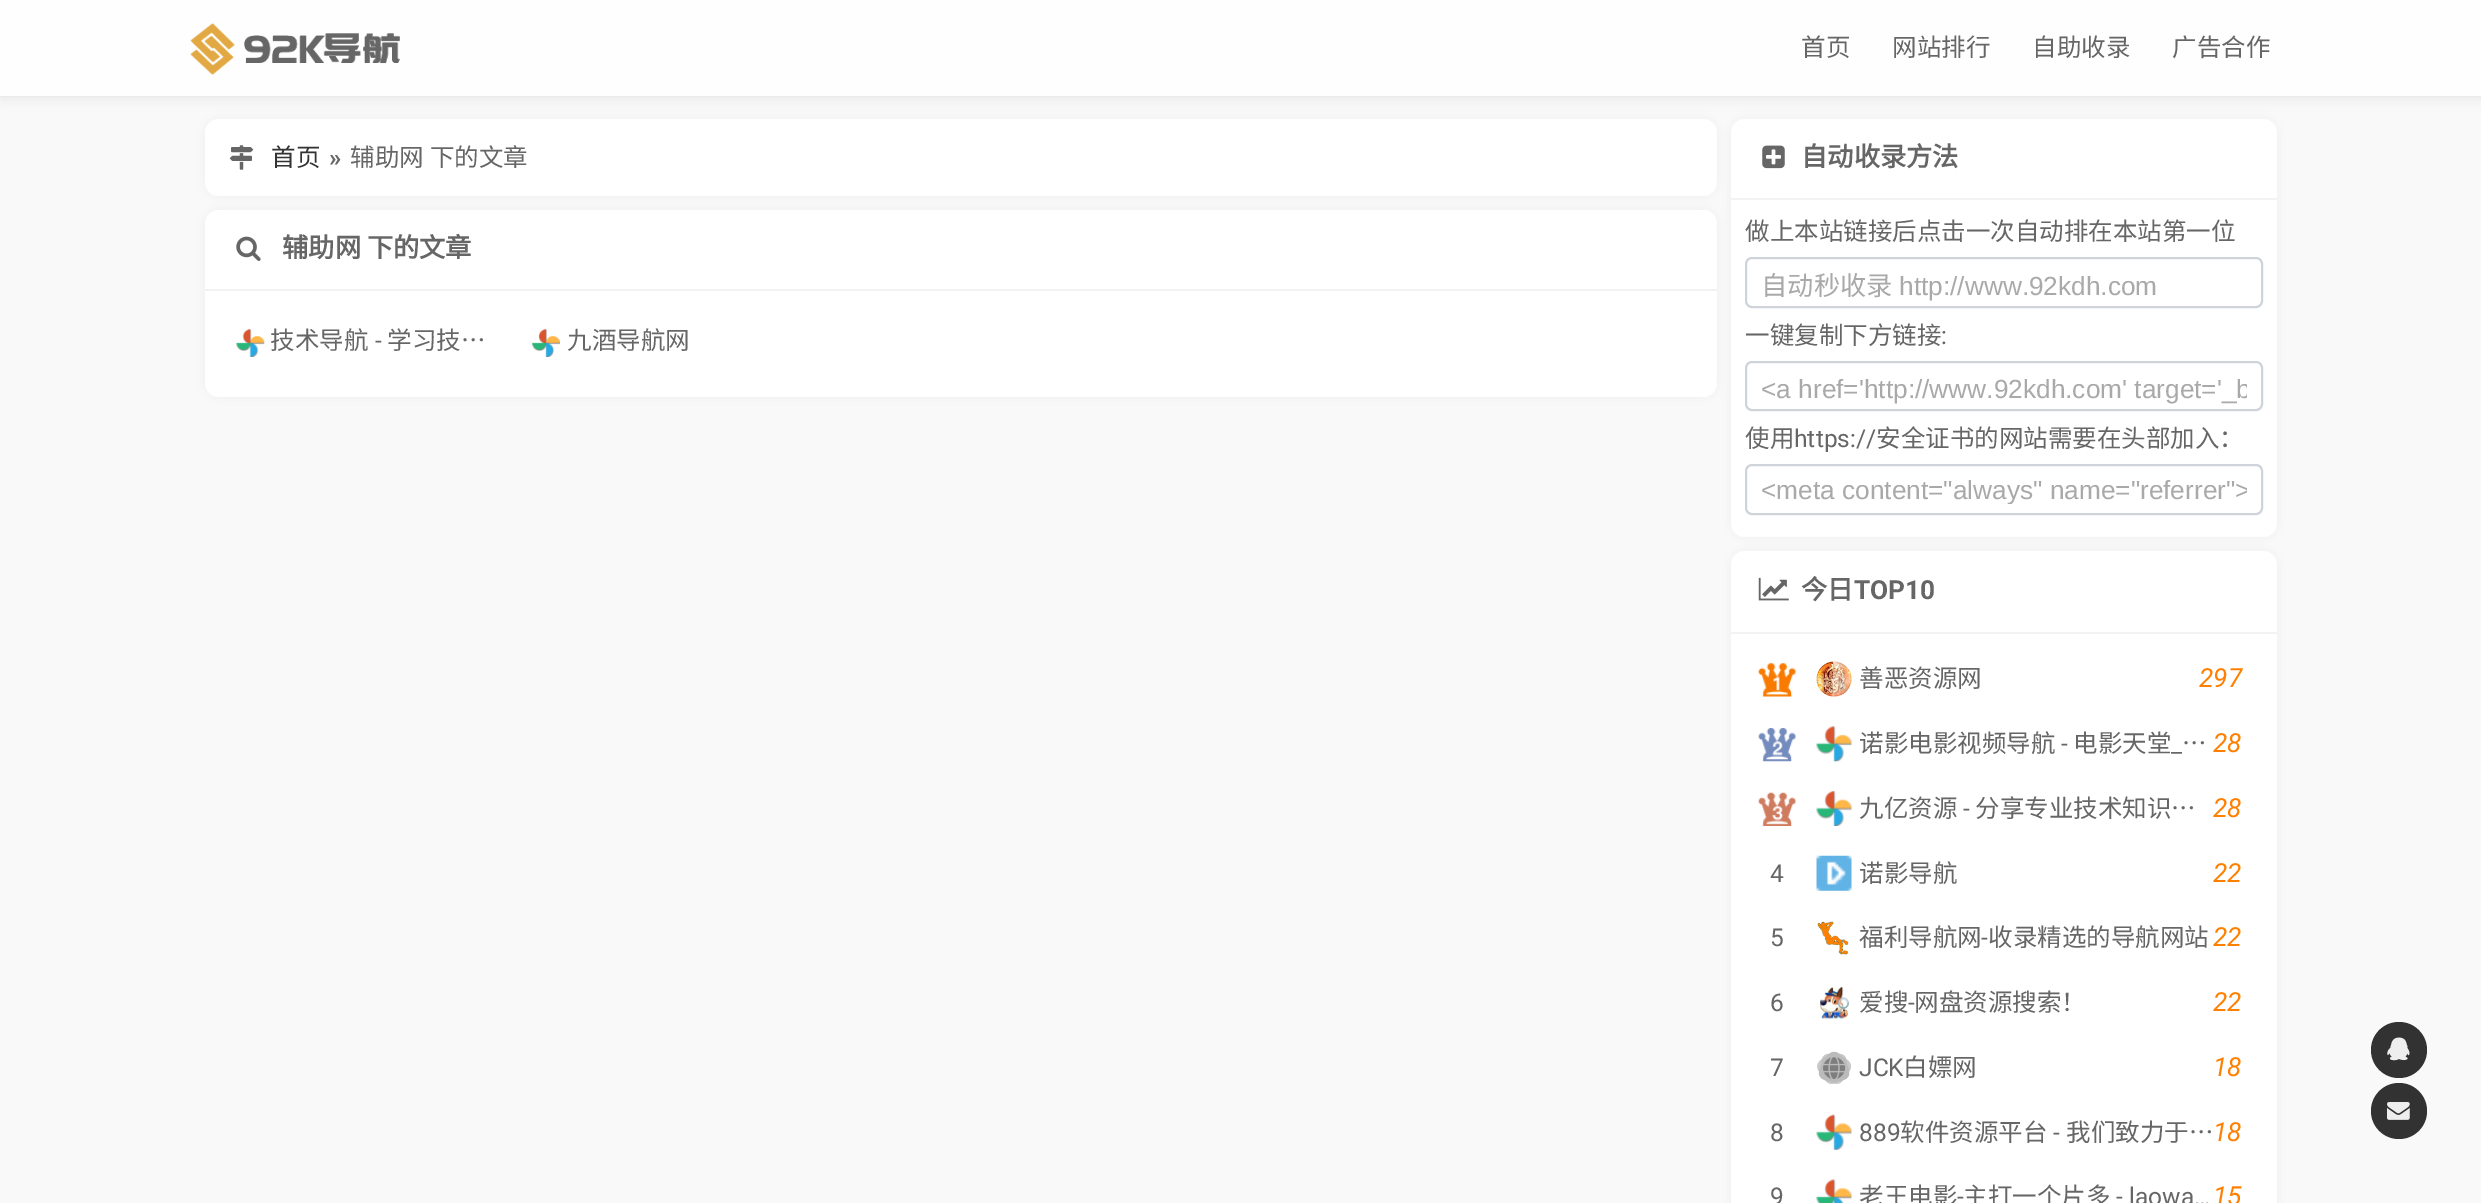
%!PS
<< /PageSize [2481 1203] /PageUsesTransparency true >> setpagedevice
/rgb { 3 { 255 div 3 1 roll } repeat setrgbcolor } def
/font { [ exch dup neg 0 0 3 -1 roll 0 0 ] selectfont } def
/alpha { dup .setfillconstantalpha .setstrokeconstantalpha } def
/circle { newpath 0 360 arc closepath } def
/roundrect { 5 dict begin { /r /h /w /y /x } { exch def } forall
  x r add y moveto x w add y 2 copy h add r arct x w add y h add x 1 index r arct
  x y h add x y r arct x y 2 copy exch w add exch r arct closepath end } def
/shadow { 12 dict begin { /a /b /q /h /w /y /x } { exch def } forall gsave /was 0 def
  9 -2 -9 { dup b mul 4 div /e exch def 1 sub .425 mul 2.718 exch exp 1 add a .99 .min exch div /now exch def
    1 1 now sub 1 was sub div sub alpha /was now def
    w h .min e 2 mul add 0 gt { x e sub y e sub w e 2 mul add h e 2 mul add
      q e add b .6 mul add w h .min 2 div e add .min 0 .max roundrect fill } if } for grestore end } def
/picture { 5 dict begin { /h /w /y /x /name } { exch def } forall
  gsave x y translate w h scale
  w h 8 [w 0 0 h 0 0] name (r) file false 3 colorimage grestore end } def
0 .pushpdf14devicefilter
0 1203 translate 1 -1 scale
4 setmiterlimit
249 249 249 rgb
0 0 2481 1203 rectfill
221 221 221 rgb
0 0 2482 96 0 7 1 shadow
254 254 254 rgb
0 0 2481 96 rectfill
(img/1.rgb) 190 23 210 52 picture
238 238 238 rgb
205 119 1512 77 14 7 1 shadow
255 255 255 rgb
205 119 1512 77 14 roundrect fill
(img/2.rgb) 229 145 25 25 picture
238 238 238 rgb
205 210 1512 187 14 7 1 shadow
255 255 255 rgb
205 210 1512 187 14 roundrect fill
242 242 242 rgb
205 289 1512 2 rectfill
(img/3.rgb) 236 236 25 25 picture
(img/4.rgb) 236 329 29 28 picture
(img/5.rgb) 532 329 28 28 picture
238 238 238 rgb
1731 119 546 418 14 7 1 shadow
255 255 255 rgb
1731 119 546 418 14 roundrect fill
242 242 242 rgb
1731 198 546 2 rectfill
(img/6.rgb) 1762 145 23 24 picture
206 212 218 rgb
2 setlinewidth
1746 258 516 49 6 roundrect stroke
1746 362 516 48 6 roundrect stroke
1746 465 516 49 6 roundrect stroke
238 238 238 rgb
1731 551 546 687 14 7 1 shadow
255 255 255 rgb
1731 551 546 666 14 roundrect fill
242 242 242 rgb
1731 632 546 2 rectfill
(img/7.rgb) 1758 577 31 24 picture
(img/8.rgb) 1758 663 38 34 picture
(img/9.rgb) 1816 661 36 36 picture
(img/10.rgb) 1758 728 38 34 picture
(img/11.rgb) 1816 726 36 36 picture
(img/12.rgb) 1758 792 38 34 picture
(img/13.rgb) 1816 791 36 35 picture
(img/14.rgb) 1816 855 36 36 picture
(img/15.rgb) 1817 921 32 34 picture
(img/16.rgb) 1820 986 30 34 picture
(img/17.rgb) 1817 1051 34 33 picture
(img/18.rgb) 1816 1114 36 36 picture
(img/19.rgb) 1816 1179 36 24 picture
50 50 50 rgb
2399 1050 28 circle fill
(img/20.rgb) 2387 1037 23 24 picture
2399 1111 28 circle fill
(img/21.rgb) 2387 1102 23 18 picture
/NotoSansCJKSC-Regular 24.5 font
102 102 102 rgb
[
  [(首页) 1801 56]
  [(网站排行) 1892 56]
  [(自助收录) 2032 56]
  [(广告合作) 2172 56]
] { aload pop moveto show } forall
51 51 51 rgb
271 166 moveto (首页) show
/Roboto-Bold 24.5 font
102 102 102 rgb
329 166 moveto (») show
/NotoSansCJKSC-Regular 24.5 font
350 166 moveto 1 0 32 (辅助网 下的文章) widthshow
/NotoSansCJKSC-Bold 26.25 font
282 257 moveto (辅助网 下的文章) show
/NotoSansCJKSC-Regular 24.5 font
270 349 moveto (技术导航) show
/Roboto-Regular 24.5 font
375 349 moveto (-) show
/NotoSansCJKSC-Regular 24.5 font
387 349 moveto (学习技…) show
567 349 moveto (九酒导航网) show
/NotoSansCJKSC-Bold 26.25 font
1801 166 moveto (自动收录方法) show
/NotoSansCJKSC-Regular 24.5 font
1745 240 moveto (做上本站链接后点击一次自动排在本站第一位) show
/NotoSansCJKSC-Regular 26.25 font
169 169 169 rgb
1761 295 moveto (自动秒收录) show
/LiberationSans-Regular 26.25 font
1899 295 moveto (http://www.92kdh.com) show
/NotoSansCJKSC-Regular 24.5 font
102 102 102 rgb
1745 344 moveto (一键复制下方链接) show
/Roboto-Regular 24.5 font
1941 344 moveto (:) show
gsave
1761 368 486 36 rectclip
/LiberationSans-Regular 26.25 font
169 169 169 rgb
1761 398 moveto (<a href='http://www.92kdh.com' target='_b) show
grestore
/NotoSansCJKSC-Regular 24.5 font
1745 447 moveto (使用) show
/Roboto-Regular 24.5 font
1794 447 moveto (https://) show
/NotoSansCJKSC-Regular 24.5 font
1876 447 moveto (安全证书的网站需要在头部加入：) show
gsave
1761 474 486 30 rectclip
/LiberationSans-Regular 26.25 font
169 169 169 rgb
1761 499 moveto (<meta content="always" name="referrer">) show
grestore
/NotoSansCJKSC-Bold 26.25 font
1801 599 moveto (今日) show
/Roboto-Bold 26.25 font
1854 599 moveto (TOP10) show
/NotoSansCJKSC-Regular 24.5 font
1859 687 moveto (善恶资源网) show
/Roboto-Italic 26.25 font
255 127 0 rgb
2199 687 moveto (297) show
/NotoSansCJKSC-Regular 24.5 font
102 102 102 rgb
1859 752 moveto (诺影电影视频导航) show
/Roboto-Regular 24.5 font
2061 752 moveto (-) show
/NotoSansCJKSC-Regular 24.5 font
2073 752 moveto (电影天堂) show
2182 752 moveto (…) show
/Roboto-Regular 24.5 font
2171 752 moveto (_) show
/Roboto-Italic 26.25 font
255 127 0 rgb
2213 752 moveto (28) show
/NotoSansCJKSC-Regular 24.5 font
102 102 102 rgb
1859 817 moveto (九亿资源) show
/Roboto-Regular 24.5 font
1963 817 moveto (-) show
/NotoSansCJKSC-Regular 24.5 font
1975 817 moveto (分享专业技术知识…) show
/Roboto-Italic 26.25 font
255 127 0 rgb
2213 817 moveto (28) show
/Roboto-Regular 24.5 font
102 102 102 rgb
1770 882 moveto (4) show
/NotoSansCJKSC-Regular 24.5 font
1859 882 moveto (诺影导航) show
/Roboto-Italic 26.25 font
255 127 0 rgb
2213 882 moveto (22) show
/Roboto-Regular 24.5 font
102 102 102 rgb
1770 946 moveto (5) show
/NotoSansCJKSC-Regular 24.5 font
1859 946 moveto (福利导航网) show
/Roboto-Regular 24.5 font
1981 946 moveto (-) show
/NotoSansCJKSC-Regular 24.5 font
1988 946 moveto (收录精选的导航网站) show
/Roboto-Italic 26.25 font
255 127 0 rgb
2213 946 moveto (22) show
/Roboto-Regular 24.5 font
102 102 102 rgb
1770 1011 moveto (6) show
/NotoSansCJKSC-Regular 24.5 font
1859 1011 moveto (爱搜) show
/Roboto-Regular 24.5 font
1908 1011 moveto (-) show
/NotoSansCJKSC-Regular 24.5 font
1914 1011 moveto (网盘资源搜索！) show
/Roboto-Italic 26.25 font
255 127 0 rgb
2213 1011 moveto (22) show
/Roboto-Regular 24.5 font
102 102 102 rgb
1770 1076 moveto (7) show
1859 1076 moveto (JCK) show
/NotoSansCJKSC-Regular 24.5 font
1903 1076 moveto (白嫖网) show
/Roboto-Italic 26.25 font
255 127 0 rgb
2213 1076 moveto (18) show
/Roboto-Regular 24.5 font
102 102 102 rgb
1770 1141 moveto (8) show
1859 1141 moveto (889) show
/NotoSansCJKSC-Regular 24.5 font
1900 1141 moveto (软件资源平台) show
/Roboto-Regular 24.5 font
2053 1141 moveto (-) show
/NotoSansCJKSC-Regular 24.5 font
2066 1141 moveto (我们致力于…) show
/Roboto-Italic 26.25 font
255 127 0 rgb
2213 1141 moveto (18) show
/Roboto-Regular 24.5 font
102 102 102 rgb
1770 1205 moveto (9) show
/NotoSansCJKSC-Regular 24.5 font
1859 1205 moveto (老王电影) show
/Roboto-Regular 24.5 font
1957 1205 moveto (-) show
/NotoSansCJKSC-Regular 24.5 font
1963 1205 moveto (主打一个片多) show
/Roboto-Regular 24.5 font
2116 1205 moveto (- laowa…) show
/Roboto-Italic 26.25 font
255 127 0 rgb
2213 1205 moveto (15) show
.poppdf14devicefilter showpage
